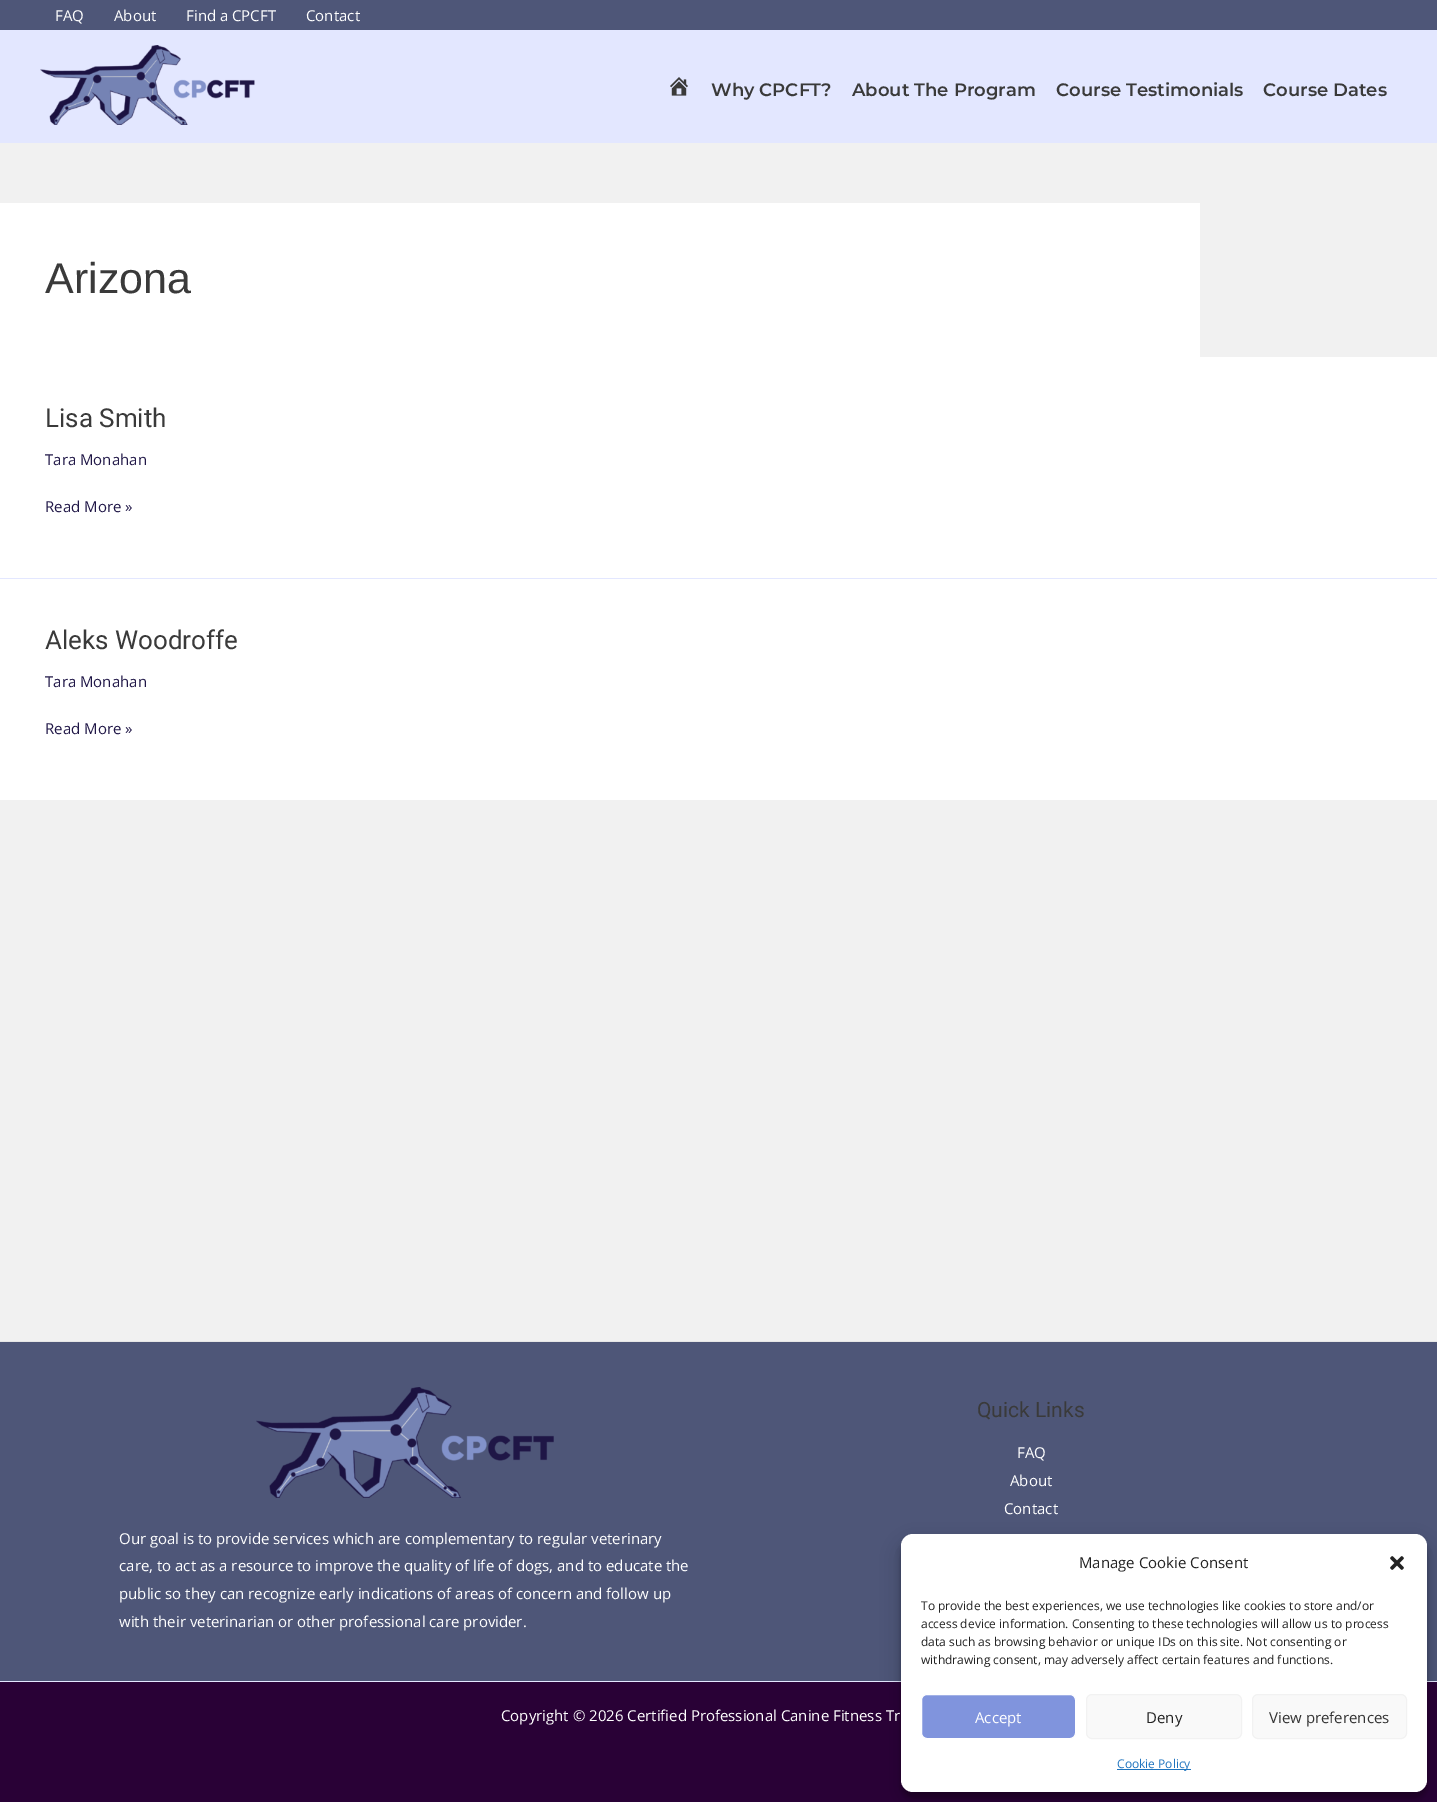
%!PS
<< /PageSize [1437 1802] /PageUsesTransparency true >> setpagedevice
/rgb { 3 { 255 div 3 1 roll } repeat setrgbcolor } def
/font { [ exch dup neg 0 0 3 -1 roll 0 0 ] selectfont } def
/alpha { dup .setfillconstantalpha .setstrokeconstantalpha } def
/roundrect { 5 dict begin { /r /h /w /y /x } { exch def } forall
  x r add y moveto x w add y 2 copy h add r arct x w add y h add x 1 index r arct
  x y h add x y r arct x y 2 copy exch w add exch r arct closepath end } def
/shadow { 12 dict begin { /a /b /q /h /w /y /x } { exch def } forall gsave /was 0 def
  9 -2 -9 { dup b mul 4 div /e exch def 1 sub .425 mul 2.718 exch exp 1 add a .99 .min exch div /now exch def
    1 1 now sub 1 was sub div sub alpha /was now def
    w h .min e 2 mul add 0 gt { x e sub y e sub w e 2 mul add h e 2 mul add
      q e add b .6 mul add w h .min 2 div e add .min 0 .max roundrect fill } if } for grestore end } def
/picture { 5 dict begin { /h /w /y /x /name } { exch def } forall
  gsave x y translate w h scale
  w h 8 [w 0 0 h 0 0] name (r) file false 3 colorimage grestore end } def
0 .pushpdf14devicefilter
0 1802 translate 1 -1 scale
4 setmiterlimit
241 241 241 rgb
0 0 1437 1802 rectfill
78 86 120 rgb
0 0 1437 30 rectfill
227 231 255 rgb
0 30 1437 113 rectfill
(img/1.rgb) 40 45 215 80 picture
(img/2.rgb) 670 77 18 19 picture
[
  [0 203 1200 154 255 255 255]
  [0 357 1437 221 255 255 255]
  [0 578 1437 1 227 231 255]
  [0 579 1437 221 255 255 255]
  [0 1342 1437 339 78 86 120]
  [0 1341 1437 1 230 230 230]
] { aload pop rgb rectfill } forall
(img/3.rgb) 256 1387 298 111 picture
41 1 54 rgb
0 1682 1437 120 rectfill
227 231 255 rgb
0 1681 1437 1 rectfill
0 0 0 rgb
901 1540 526 258 12 3 0.23 shadow
901 1544 526 258 12 10 0.19 shadow
255 255 255 rgb
901 1534 526 258 12 roundrect fill
(img/4.rgb) 1390 1556 14 14 picture
128 148 221 rgb
921.5 1694.5 154 44 5.5 roundrect gsave fill grestore
255 255 255 rgb
stroke
249 249 249 rgb
1086.5 1694.5 155 44 5.5 roundrect gsave fill grestore
242 242 242 rgb
stroke
249 249 249 rgb
1252.5 1694.5 154 44 5.5 roundrect gsave fill grestore
242 242 242 rgb
stroke
30 115 190 rgb
1117 1769 74 1 rectfill
/OpenSans-Regular 15 font
255 255 255 rgb
[
  [(FAQ) 55 21]
  [(About) 114 21]
  [(Find a CPCFT) 186 21]
  [(Contact) 306 21]
] { aload pop moveto show } forall
/Montserrat-Thin 18 font
58 58 58 rgb
[
  [(Why CPCFT?) 711 96]
  [(About The Program) 852 96]
  [(Course Testimonials) 1056 96]
  [(Course Dates) 1263 96]
] { aload pop moveto show } forall
/LiberationSans-Regular 43 font
45 293 moveto (Arizona) show
/Roboto-Regular 26 font
45 427 moveto (Lisa Smith) show
/OpenSans-Regular 15 font
32 23 71 rgb
45 465 moveto (Tara Monahan) show
45 512 moveto (Read More ») show
/Roboto-Regular 26 font
58 58 58 rgb
45 649 moveto (Aleks Woodroffe) show
/OpenSans-Regular 15 font
32 23 71 rgb
45 687 moveto (Tara Monahan) show
45 734 moveto (Read More ») show
/Roboto-Regular 21 font
58 58 58 rgb
977 1417 moveto (Quick Links) show
/OpenSans-Regular 15 font
255 255 255 rgb
[
  [(FAQ) 1017 1458]
  [(About) 1010 1486]
  [(Contact) 1004 1514]
  [(Our goal is to provide services which are complementary to regular veterinary) 119 1544]
  [(care, to act as a resource to improve the quality of life of dogs, and to educate the) 119 1571]
  [(public so they can recognize early indications of areas of concern and follow up) 119 1599]
  [(with their veterinarian or other professional care provider.) 119 1627]
  [(Copyright © 2026 Certified Professional Canine Fitness Tr) 501 1721]
] { aload pop moveto show } forall
34 34 34 rgb
1079 1568 moveto (Manage Cookie Consent) show
/OpenSans-Regular 12 font
[
  [(To provide the best experiences, we use technologies like cookies to store and/or) 921 1610]
  [(access device information. Consenting to these technologies will allow us to process) 921 1628]
  [(data such as browsing behavior or unique IDs on this site. Not consenting or) 921 1646]
  [(withdrawing consent, may adversely affect certain features and functions.) 921 1664]
] { aload pop moveto show } forall
/OpenSans-Regular 15 font
255 255 255 rgb
975 1723 moveto (Accept) show
34 34 34 rgb
1146 1723 moveto (Deny) show
51 51 51 rgb
1269 1723 moveto (View preferences) show
/OpenSans-Regular 12 font
30 115 190 rgb
1117 1768 moveto (Cookie Policy) show
.poppdf14devicefilter showpage
